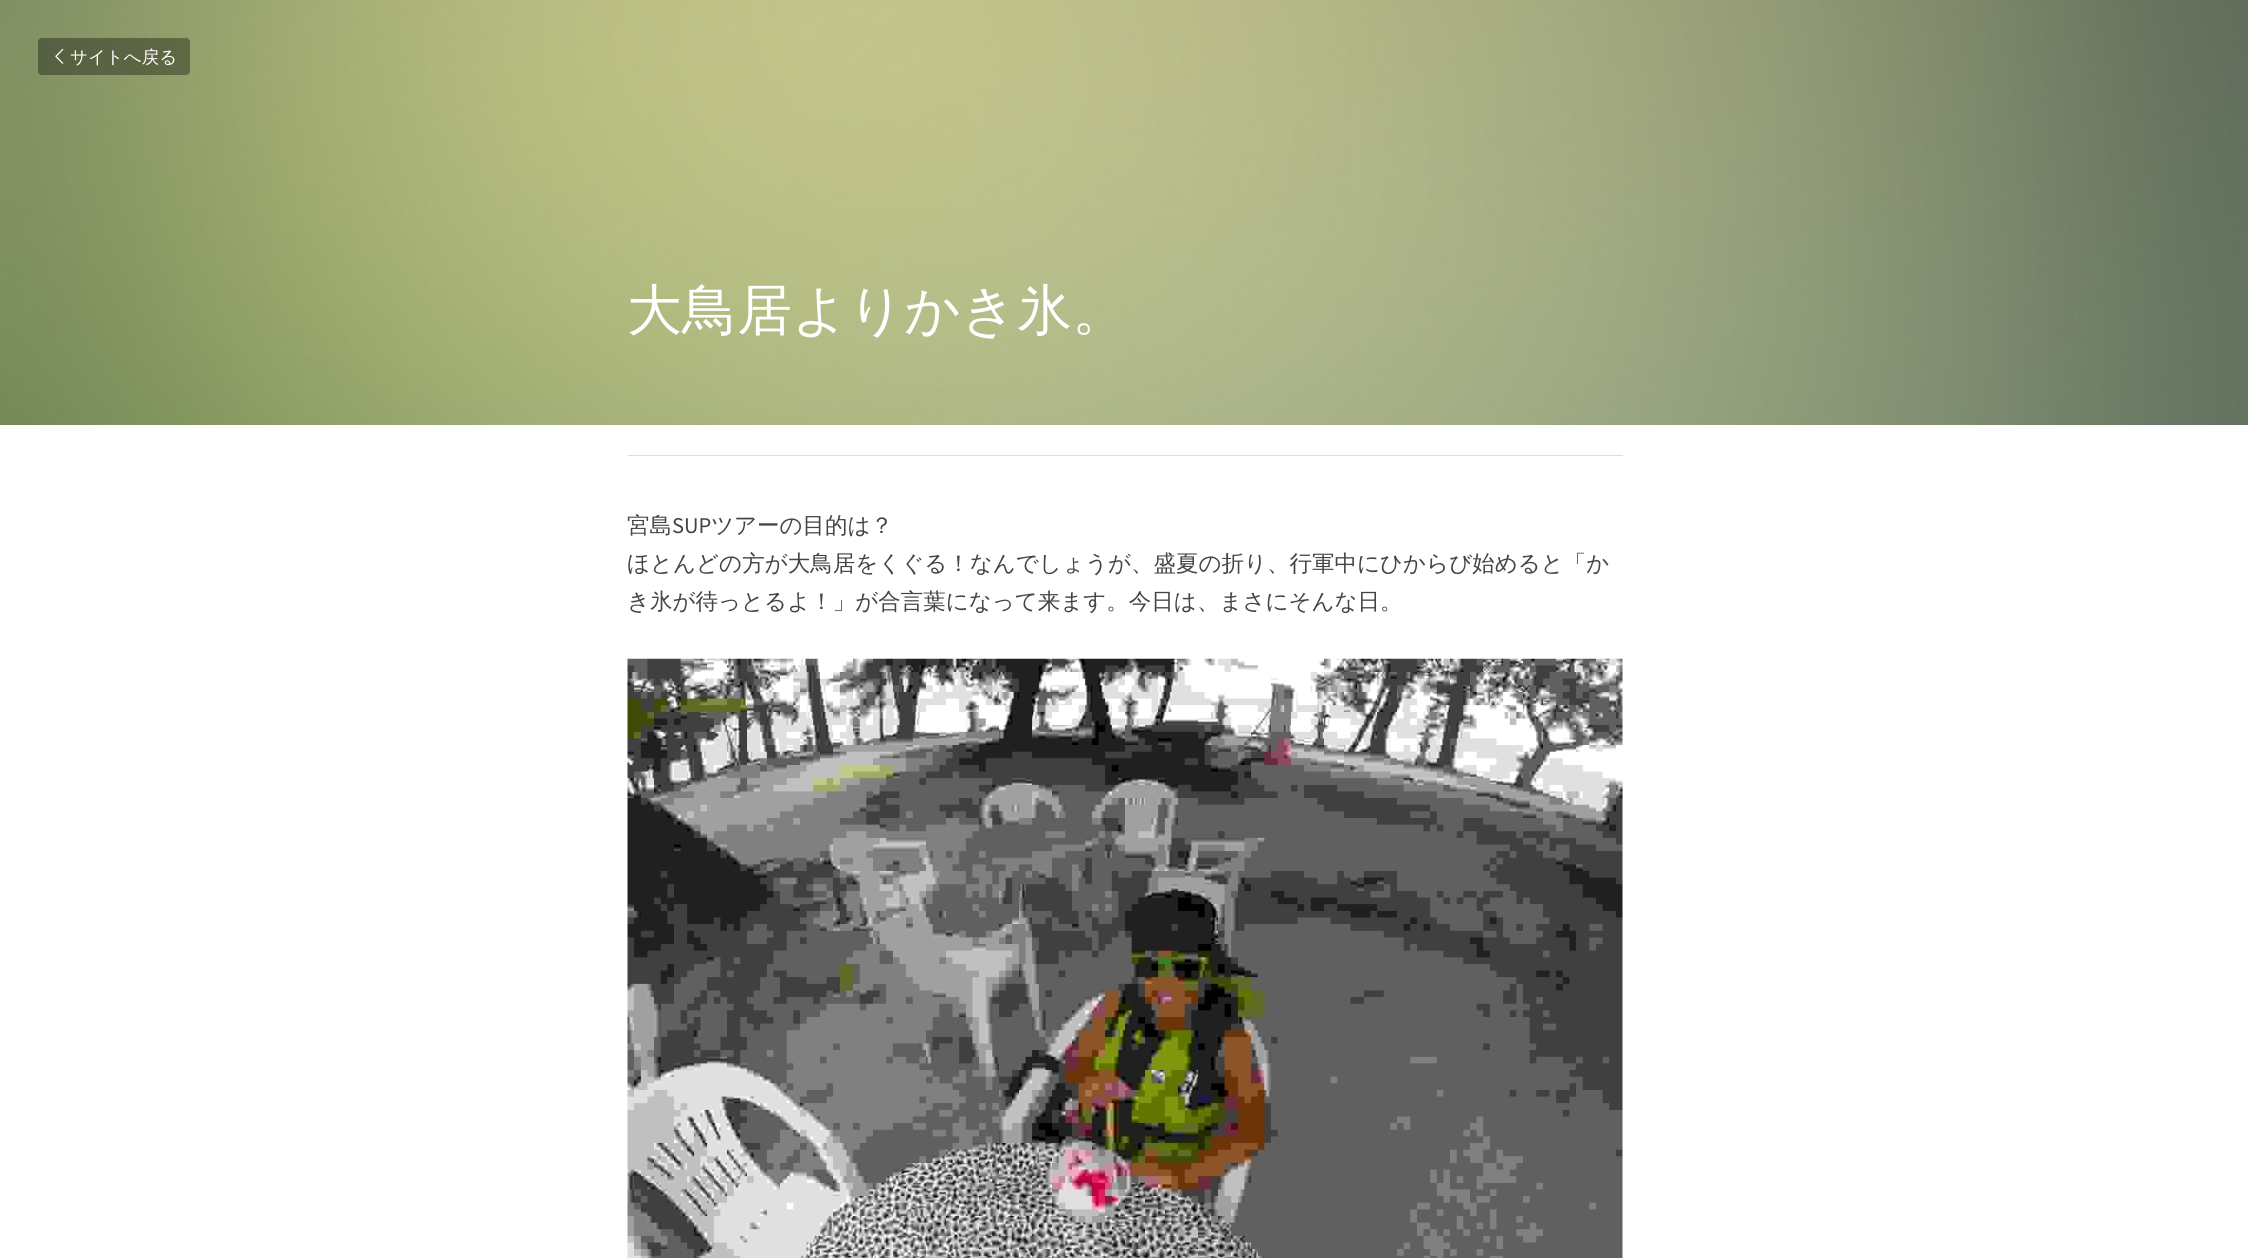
#include <cairo.h>
#include <math.h>
#include <stddef.h>


static void rgb(cairo_t *cr, int r, int g, int b)
{
	cairo_set_source_rgb(cr, r / 255.0, g / 255.0, b / 255.0);
}

static void face(cairo_t *cr, const char *family, double size, int italic, int bold)
{
	cairo_select_font_face(cr, family, italic ? CAIRO_FONT_SLANT_ITALIC : CAIRO_FONT_SLANT_NORMAL,
		bold ? CAIRO_FONT_WEIGHT_BOLD : CAIRO_FONT_WEIGHT_NORMAL);
	cairo_set_font_size(cr, size);
}

static void label(cairo_t *cr, double x, double y, const char *s)
{
	cairo_move_to(cr, x, y);
	cairo_show_text(cr, s);
}

static void rect(cairo_t *cr, double x, double y, double w, double h)
{
	cairo_rectangle(cr, x, y, w, h);
	cairo_fill(cr);
}

static void rrect(cairo_t *cr, double x, double y, double w, double h, double r)
{
	cairo_new_sub_path(cr);
	cairo_arc(cr, x + w - r, y + h - r, r, 0, M_PI / 2);
	cairo_arc(cr, x + r, y + h - r, r, M_PI / 2, M_PI);
	cairo_arc(cr, x + r, y + r, r, M_PI, 1.5 * M_PI);
	cairo_arc(cr, x + w - r, y + r, r, 1.5 * M_PI, 2 * M_PI);
	cairo_close_path(cr);
}

static void image(cairo_t *cr, const char *path, double x, double y, double w, double h)
{
	cairo_surface_t *image = cairo_image_surface_create_from_png(path);
	cairo_save(cr);
	cairo_set_source_surface(cr, image, x, y);
	cairo_rectangle(cr, x, y, w, h);
	cairo_fill(cr);
	cairo_restore(cr);
	cairo_surface_destroy(image);
}

static void draw(cairo_t *cr) {
	rgb(cr, 255, 255, 255);
	cairo_paint(cr);
	image(cr, "image0.png", 0, 0, 2248, 425);
	cairo_set_source_rgba(cr, 0, 0, 0, 0.35);
	rrect(cr, 38, 38, 152, 37, 4);
	cairo_fill(cr);
	image(cr, "image1.png", 55, 48, 9, 16);
	face(cr, "WenQuanYi Zen Hei Medium", 17.5, 0, 0);
	rgb(cr, 255, 255, 255);
	label(cr, 70, 63, "サイトへ戻る");
	face(cr, "WenQuanYi Zen Hei Medium", 55, 0, 0);
	label(cr, 627, 329, "大鳥居よりかき氷。");
	rgb(cr, 221, 221, 221);
	rect(cr, 628, 455, 995, 1);
	face(cr, "WenQuanYi Zen Hei Medium", 22.5, 0, 0);
	rgb(cr, 68, 68, 68);
	label(cr, 627, 533, "宮島");
	face(cr, "Source Sans Pro", 22.5, 0, 0);
	label(cr, 672, 533, "SUP");
	face(cr, "WenQuanYi Zen Hei Medium", 22.5, 0, 0);
	label(cr, 711, 533, "ツアーの目的は？");
	label(cr, 627, 571, "ほとんどの方が大鳥居をくぐる！なんでしょうが、盛夏の折り、行軍中にひからび始めると「か");
	label(cr, 627, 609, "き氷が待っとるよ！」が合言葉になって来ます。今日は、まさにそんな日。");
	image(cr, "image2.png", 627, 658, 996, 600);
}

int main(void) {
	cairo_surface_t *surface = cairo_image_surface_create(CAIRO_FORMAT_RGB24, 2248, 1258);
	cairo_t *cr = cairo_create(surface);
	cairo_font_options_t *options = cairo_font_options_create();
	cairo_font_options_set_hint_metrics(options, CAIRO_HINT_METRICS_OFF);
	cairo_font_options_set_hint_style(options, CAIRO_HINT_STYLE_NONE);
	cairo_set_font_options(cr, options);
	cairo_set_miter_limit(cr, 4);
	draw(cr);
	cairo_surface_write_to_png(surface, "render.png");
	cairo_font_options_destroy(options);
	cairo_destroy(cr);
	cairo_surface_destroy(surface);
	return 0;
}
